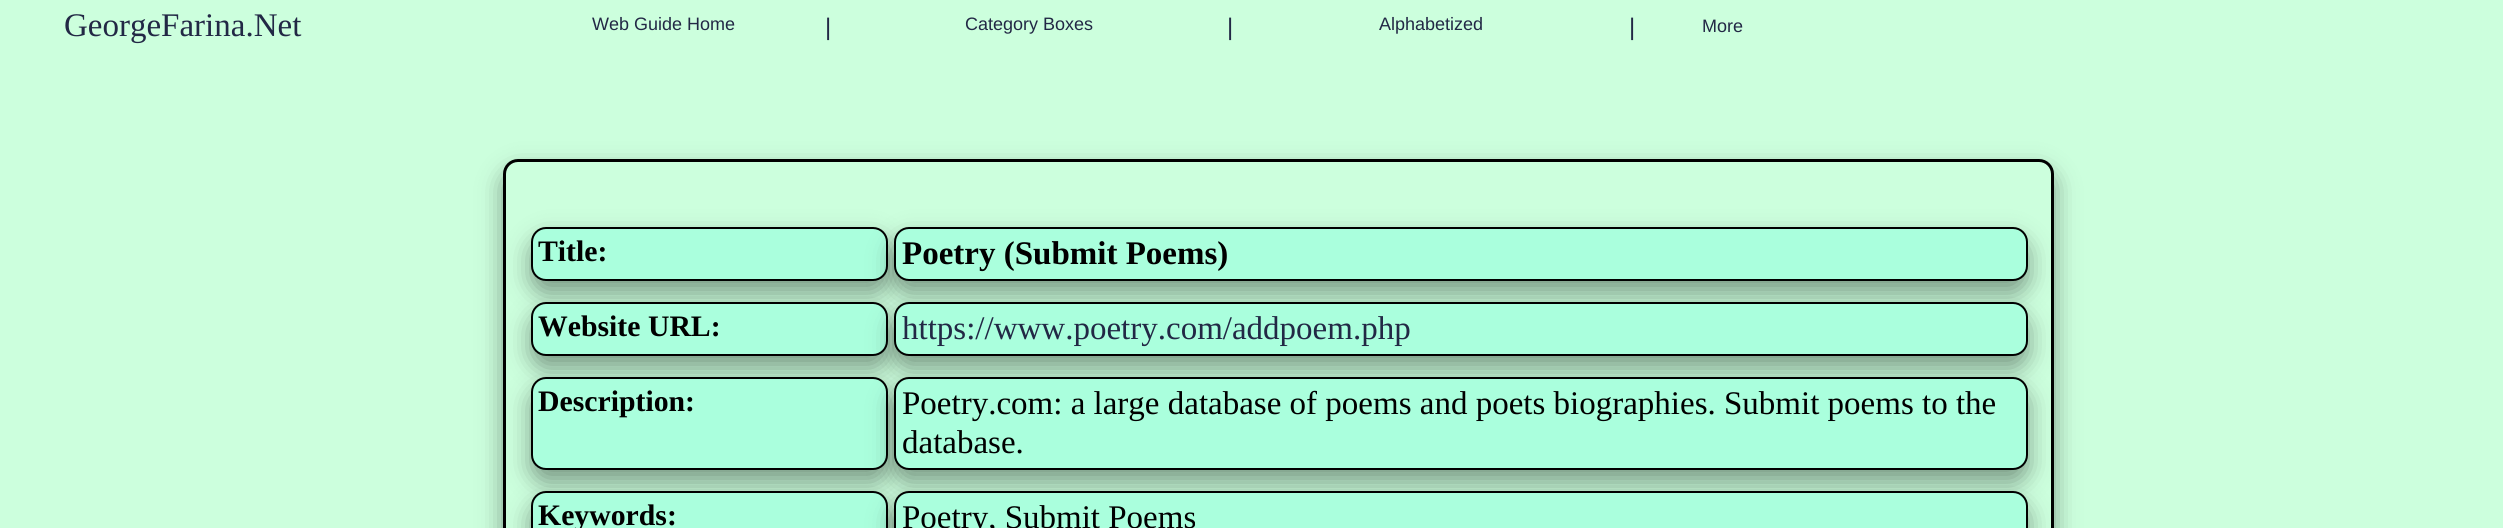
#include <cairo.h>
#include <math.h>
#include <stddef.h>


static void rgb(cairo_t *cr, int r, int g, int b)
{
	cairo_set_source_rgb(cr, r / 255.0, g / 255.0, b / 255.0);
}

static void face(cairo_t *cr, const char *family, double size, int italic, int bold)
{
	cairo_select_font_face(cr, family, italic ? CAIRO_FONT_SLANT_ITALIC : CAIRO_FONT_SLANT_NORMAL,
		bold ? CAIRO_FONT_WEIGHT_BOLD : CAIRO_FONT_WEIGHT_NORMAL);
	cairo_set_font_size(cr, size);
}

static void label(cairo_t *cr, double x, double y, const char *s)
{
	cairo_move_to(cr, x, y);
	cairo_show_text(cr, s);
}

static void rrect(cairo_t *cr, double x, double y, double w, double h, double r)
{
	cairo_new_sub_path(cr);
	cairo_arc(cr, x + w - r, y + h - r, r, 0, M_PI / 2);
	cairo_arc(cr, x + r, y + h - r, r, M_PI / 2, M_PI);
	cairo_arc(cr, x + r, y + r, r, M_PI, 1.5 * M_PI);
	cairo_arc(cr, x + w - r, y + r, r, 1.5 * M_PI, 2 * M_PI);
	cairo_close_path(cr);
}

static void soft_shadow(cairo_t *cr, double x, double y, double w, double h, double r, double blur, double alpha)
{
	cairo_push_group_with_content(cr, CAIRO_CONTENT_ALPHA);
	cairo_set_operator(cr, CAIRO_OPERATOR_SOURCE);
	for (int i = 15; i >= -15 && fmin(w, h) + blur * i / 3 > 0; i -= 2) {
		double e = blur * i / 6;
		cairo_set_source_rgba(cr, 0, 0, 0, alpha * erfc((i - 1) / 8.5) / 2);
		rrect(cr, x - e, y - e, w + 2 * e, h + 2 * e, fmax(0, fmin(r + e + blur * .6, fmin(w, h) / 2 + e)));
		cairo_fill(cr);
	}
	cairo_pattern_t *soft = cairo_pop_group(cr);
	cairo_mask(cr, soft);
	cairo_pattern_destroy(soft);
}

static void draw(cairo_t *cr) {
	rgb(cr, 204, 255, 221);
	cairo_paint(cr);
	face(cr, "Liberation Serif", 33, 0, 0);
	rgb(cr, 34, 40, 69);
	label(cr, 64, 36, "GeorgeFarina.Net");
	face(cr, "Liberation Sans", 18, 0, 0);
	label(cr, 592, 30, "Web Guide Home");
	face(cr, "Liberation Sans", 24, 0, 0);
	label(cr, 825, 35, "|");
	face(cr, "Liberation Sans", 18, 0, 0);
	label(cr, 965, 30, "Category Boxes");
	face(cr, "Liberation Sans", 24, 0, 0);
	label(cr, 1227, 35, "|");
	face(cr, "Liberation Sans", 18, 0, 0);
	label(cr, 1379, 30, "Alphabetized");
	face(cr, "Liberation Sans", 24, 0, 0);
	label(cr, 1629, 35, "|");
	face(cr, "Liberation Sans", 18, 0, 0);
	label(cr, 1702, 32, "More");
	rgb(cr, 0, 0, 0);
	soft_shadow(cr, 503, 171, 1551, 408, 15, 12, 0.4);
	rgb(cr, 204, 255, 221);
	rrect(cr, 504.5, 160.5, 1548, 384, 13.5);
	cairo_fill_preserve(cr);
	rgb(cr, 0, 0, 0);
	cairo_set_line_width(cr, 3);
	cairo_stroke(cr);
	rgb(cr, 0, 0, 0);
	soft_shadow(cr, 531, 239, 357, 54, 15, 12, 0.4);
	rgb(cr, 170, 255, 221);
	rrect(cr, 532, 228, 355, 52, 14);
	cairo_fill_preserve(cr);
	rgb(cr, 0, 0, 0);
	cairo_set_line_width(cr, 2);
	cairo_stroke(cr);
	face(cr, "Liberation Serif", 29.75, 0, 1);
	label(cr, 538, 261, "Title:");
	rgb(cr, 0, 0, 0);
	soft_shadow(cr, 531, 314, 357, 54, 15, 12, 0.4);
	rgb(cr, 170, 255, 221);
	rrect(cr, 532, 303, 355, 52, 14);
	cairo_fill_preserve(cr);
	rgb(cr, 0, 0, 0);
	cairo_stroke(cr);
	rgb(cr, 0, 0, 0);
	soft_shadow(cr, 894, 239, 1134, 54, 15, 12, 0.4);
	rgb(cr, 170, 255, 221);
	rrect(cr, 895, 228, 1132, 52, 14);
	cairo_fill_preserve(cr);
	rgb(cr, 0, 0, 0);
	cairo_stroke(cr);
	face(cr, "Liberation Serif", 33, 0, 1);
	label(cr, 902, 264, "Poetry (Submit Poems)");
	face(cr, "Liberation Serif", 29.75, 0, 1);
	label(cr, 538, 336, "Website URL:");
	rgb(cr, 0, 0, 0);
	soft_shadow(cr, 531, 389, 357, 93, 15, 12, 0.4);
	rgb(cr, 170, 255, 221);
	rrect(cr, 532, 378, 355, 91, 14);
	cairo_fill_preserve(cr);
	rgb(cr, 0, 0, 0);
	cairo_stroke(cr);
	rgb(cr, 0, 0, 0);
	soft_shadow(cr, 894, 314, 1134, 54, 15, 12, 0.4);
	rgb(cr, 170, 255, 221);
	rrect(cr, 895, 303, 1132, 52, 14);
	cairo_fill_preserve(cr);
	rgb(cr, 0, 0, 0);
	cairo_stroke(cr);
	face(cr, "Liberation Serif", 33, 0, 0);
	rgb(cr, 34, 40, 69);
	label(cr, 902, 339, "https://www.poetry.com/addpoem.php");
	face(cr, "Liberation Serif", 29.75, 0, 1);
	rgb(cr, 0, 0, 0);
	label(cr, 538, 411, "Description:");
	rgb(cr, 0, 0, 0);
	soft_shadow(cr, 531, 503, 357, 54, 15, 12, 0.4);
	rgb(cr, 170, 255, 221);
	rrect(cr, 532, 492, 355, 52, 14);
	cairo_fill_preserve(cr);
	rgb(cr, 0, 0, 0);
	cairo_stroke(cr);
	rgb(cr, 0, 0, 0);
	soft_shadow(cr, 894, 389, 1134, 93, 15, 12, 0.4);
	rgb(cr, 170, 255, 221);
	rrect(cr, 895, 378, 1132, 91, 14);
	cairo_fill_preserve(cr);
	rgb(cr, 0, 0, 0);
	cairo_stroke(cr);
	face(cr, "Liberation Serif", 33, 0, 0);
	label(cr, 902, 414, "Poetry.com: a large database of poems and poets biographies. Submit poems to the");
	label(cr, 902, 453, "database.");
	face(cr, "Liberation Serif", 29.75, 0, 1);
	label(cr, 538, 525, "Keywords:");
	rgb(cr, 0, 0, 0);
	soft_shadow(cr, 894, 503, 1134, 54, 15, 12, 0.4);
	rgb(cr, 170, 255, 221);
	rrect(cr, 895, 492, 1132, 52, 14);
	cairo_fill_preserve(cr);
	rgb(cr, 0, 0, 0);
	cairo_stroke(cr);
	face(cr, "Liberation Serif", 33, 0, 0);
	label(cr, 902, 528, "Poetry, Submit Poems");
}

int main(void) {
	cairo_surface_t *surface = cairo_image_surface_create(CAIRO_FORMAT_RGB24, 2503, 528);
	cairo_t *cr = cairo_create(surface);
	cairo_font_options_t *options = cairo_font_options_create();
	cairo_font_options_set_hint_metrics(options, CAIRO_HINT_METRICS_OFF);
	cairo_font_options_set_hint_style(options, CAIRO_HINT_STYLE_NONE);
	cairo_set_font_options(cr, options);
	cairo_set_miter_limit(cr, 4);
	draw(cr);
	cairo_surface_write_to_png(surface, "render.png");
	cairo_font_options_destroy(options);
	cairo_destroy(cr);
	cairo_surface_destroy(surface);
	return 0;
}
